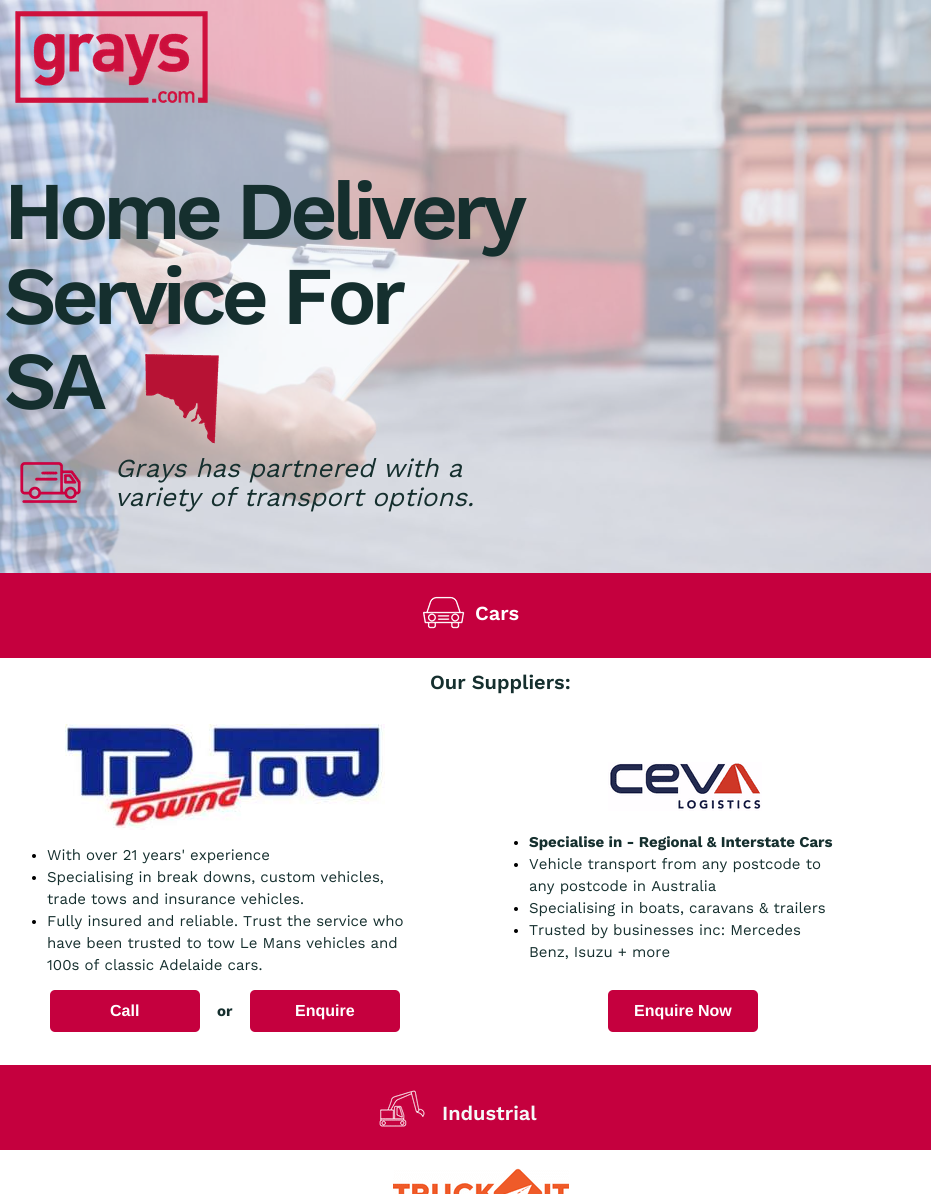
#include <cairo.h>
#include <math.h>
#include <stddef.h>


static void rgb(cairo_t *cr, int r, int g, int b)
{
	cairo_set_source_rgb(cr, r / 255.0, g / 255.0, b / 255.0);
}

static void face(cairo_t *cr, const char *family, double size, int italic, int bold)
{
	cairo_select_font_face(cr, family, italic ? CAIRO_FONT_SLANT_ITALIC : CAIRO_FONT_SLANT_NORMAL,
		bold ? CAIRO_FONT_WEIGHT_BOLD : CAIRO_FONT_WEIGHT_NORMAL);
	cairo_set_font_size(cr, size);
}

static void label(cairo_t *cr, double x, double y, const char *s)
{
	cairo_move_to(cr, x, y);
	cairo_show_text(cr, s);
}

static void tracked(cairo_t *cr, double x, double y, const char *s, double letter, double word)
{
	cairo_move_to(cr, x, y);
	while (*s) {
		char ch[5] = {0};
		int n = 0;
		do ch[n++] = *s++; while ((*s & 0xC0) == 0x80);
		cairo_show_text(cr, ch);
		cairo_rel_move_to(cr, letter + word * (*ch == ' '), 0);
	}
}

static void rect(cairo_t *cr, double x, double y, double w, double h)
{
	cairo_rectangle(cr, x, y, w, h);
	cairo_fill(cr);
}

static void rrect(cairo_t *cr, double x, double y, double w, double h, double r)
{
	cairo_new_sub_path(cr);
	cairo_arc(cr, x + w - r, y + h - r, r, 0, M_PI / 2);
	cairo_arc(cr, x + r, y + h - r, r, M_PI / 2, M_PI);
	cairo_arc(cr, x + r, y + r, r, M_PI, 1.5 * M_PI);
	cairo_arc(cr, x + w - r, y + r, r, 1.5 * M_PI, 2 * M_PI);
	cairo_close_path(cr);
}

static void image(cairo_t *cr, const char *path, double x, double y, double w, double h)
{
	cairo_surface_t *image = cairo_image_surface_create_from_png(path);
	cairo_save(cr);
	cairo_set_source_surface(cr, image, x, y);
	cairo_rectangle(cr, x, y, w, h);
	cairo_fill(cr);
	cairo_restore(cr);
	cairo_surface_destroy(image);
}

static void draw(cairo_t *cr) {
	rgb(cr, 255, 255, 255);
	cairo_paint(cr);
	image(cr, "image0.png", 0, 0, 931, 573);
	image(cr, "image1.png", 15, 11, 193, 92);
	face(cr, "Work Sans SemiBold", 82, 0, 0);
	rgb(cr, 21, 47, 46);
	tracked(cr, 4, 239, "Home Delivery", -5.25, -1);
	tracked(cr, 4, 324, "Service For", -5.25, -1);
	tracked(cr, 4, 409, "SA", -5, 0);
	image(cr, "image2.png", 145, 354, 74, 90);
	image(cr, "image3.png", 20, 461, 61, 43);
	face(cr, "Work Sans", 26, 1, 0);
	label(cr, 115, 477, "Grays has partnered with a");
	label(cr, 115, 506, "variety of transport options.");
	rgb(cr, 197, 0, 62);
	rect(cr, 0, 573, 931, 85);
	image(cr, "image4.png", 423, 596, 42, 33);
	face(cr, "Work Sans SemiBold", 20, 0, 0);
	rgb(cr, 255, 255, 255);
	label(cr, 475, 620, "Cars");
	rgb(cr, 21, 47, 46);
	label(cr, 430, 689, "Our Suppliers:");
	image(cr, "image5.png", 65, 724, 320, 106);
	image(cr, "image6.png", 608, 762, 154, 49);
	rgb(cr, 0, 0, 0);
	cairo_arc(cr, 34, 856, 2, 0, 2 * M_PI);
	cairo_fill(cr);
	face(cr, "Work Sans", 15, 0, 0);
	rgb(cr, 21, 47, 46);
	label(cr, 47, 860, "With over 21 years' experience");
	rgb(cr, 0, 0, 0);
	cairo_new_path(cr);
	cairo_arc(cr, 34, 878, 2, 0, 2 * M_PI);
	cairo_fill(cr);
	rgb(cr, 21, 47, 46);
	label(cr, 47, 882, "Specialising in break downs, custom vehicles,");
	label(cr, 47, 904, "trade tows and insurance vehicles.");
	rgb(cr, 0, 0, 0);
	cairo_new_path(cr);
	cairo_arc(cr, 34, 922, 2, 0, 2 * M_PI);
	cairo_fill(cr);
	rgb(cr, 21, 47, 46);
	label(cr, 47, 926, "Fully insured and reliable. Trust the service who");
	label(cr, 47, 948, "have been trusted to tow Le Mans vehicles and");
	label(cr, 47, 970, "100s of classic Adelaide cars.");
	rgb(cr, 0, 0, 0);
	cairo_new_path(cr);
	cairo_arc(cr, 516, 843, 2, 0, 2 * M_PI);
	cairo_fill(cr);
	face(cr, "Work Sans", 15, 0, 1);
	rgb(cr, 21, 47, 46);
	label(cr, 529, 847, "Specialise in - Regional & Interstate Cars");
	rgb(cr, 0, 0, 0);
	cairo_new_path(cr);
	cairo_arc(cr, 516, 865, 2, 0, 2 * M_PI);
	cairo_fill(cr);
	face(cr, "Work Sans", 15, 0, 0);
	rgb(cr, 21, 47, 46);
	label(cr, 529, 869, "Vehicle transport from any postcode to");
	label(cr, 529, 891, "any postcode in Australia");
	rgb(cr, 0, 0, 0);
	cairo_new_path(cr);
	cairo_arc(cr, 516, 909, 2, 0, 2 * M_PI);
	cairo_fill(cr);
	rgb(cr, 21, 47, 46);
	label(cr, 529, 913, "Specialising in boats, caravans & trailers");
	rgb(cr, 0, 0, 0);
	cairo_new_path(cr);
	cairo_arc(cr, 516, 931, 2, 0, 2 * M_PI);
	cairo_fill(cr);
	rgb(cr, 21, 47, 46);
	label(cr, 529, 935, "Trusted by businesses inc: Mercedes");
	label(cr, 529, 957, "Benz, Isuzu + more");
	rgb(cr, 197, 0, 62);
	rrect(cr, 50, 990, 150, 42, 5);
	cairo_fill(cr);
	face(cr, "Liberation Sans", 16, 0, 1);
	rgb(cr, 255, 255, 255);
	label(cr, 110, 1016, "Call");
	face(cr, "Work Sans", 15, 0, 1);
	rgb(cr, 21, 47, 46);
	label(cr, 217, 1016, "or");
	rgb(cr, 197, 0, 62);
	rrect(cr, 250, 990, 150, 42, 5);
	cairo_fill(cr);
	face(cr, "Liberation Sans", 16, 0, 1);
	rgb(cr, 255, 255, 255);
	label(cr, 295, 1016, "Enquire");
	rgb(cr, 197, 0, 62);
	rrect(cr, 608, 990, 150, 42, 5);
	cairo_fill(cr);
	rgb(cr, 255, 255, 255);
	label(cr, 634, 1016, "Enquire Now");
	rgb(cr, 197, 0, 62);
	rect(cr, 0, 1065, 931, 85);
	image(cr, "image7.png", 379, 1090, 46, 37);
	face(cr, "Work Sans SemiBold", 20, 0, 0);
	rgb(cr, 245, 248, 248);
	label(cr, 442, 1120, "Industrial");
	image(cr, "image8.png", 393, 1168, 176, 26);
}

int main(void) {
	cairo_surface_t *surface = cairo_image_surface_create(CAIRO_FORMAT_RGB24, 931, 1194);
	cairo_t *cr = cairo_create(surface);
	cairo_font_options_t *options = cairo_font_options_create();
	cairo_font_options_set_hint_metrics(options, CAIRO_HINT_METRICS_OFF);
	cairo_font_options_set_hint_style(options, CAIRO_HINT_STYLE_NONE);
	cairo_set_font_options(cr, options);
	cairo_set_miter_limit(cr, 4);
	draw(cr);
	cairo_surface_write_to_png(surface, "render.png");
	cairo_font_options_destroy(options);
	cairo_destroy(cr);
	cairo_surface_destroy(surface);
	return 0;
}
